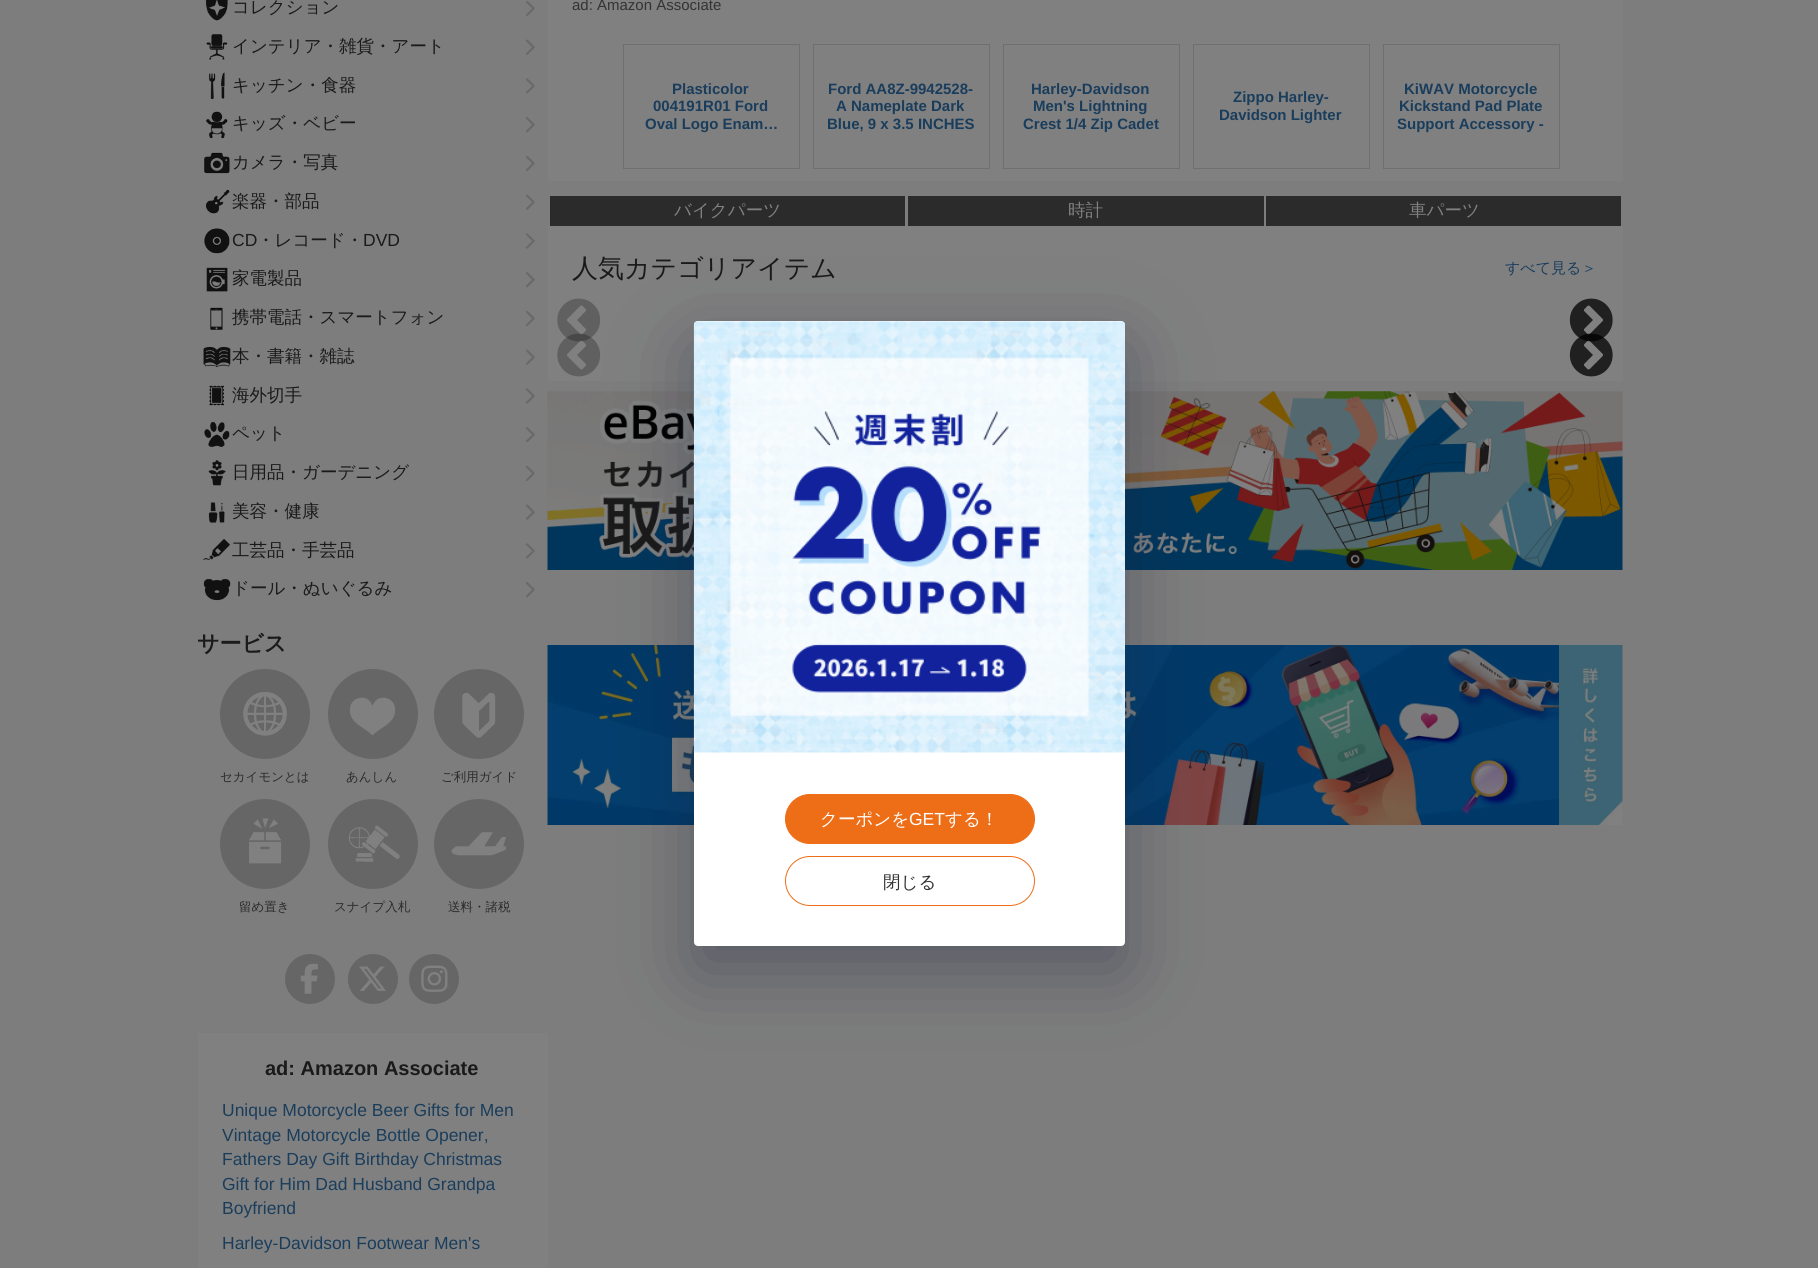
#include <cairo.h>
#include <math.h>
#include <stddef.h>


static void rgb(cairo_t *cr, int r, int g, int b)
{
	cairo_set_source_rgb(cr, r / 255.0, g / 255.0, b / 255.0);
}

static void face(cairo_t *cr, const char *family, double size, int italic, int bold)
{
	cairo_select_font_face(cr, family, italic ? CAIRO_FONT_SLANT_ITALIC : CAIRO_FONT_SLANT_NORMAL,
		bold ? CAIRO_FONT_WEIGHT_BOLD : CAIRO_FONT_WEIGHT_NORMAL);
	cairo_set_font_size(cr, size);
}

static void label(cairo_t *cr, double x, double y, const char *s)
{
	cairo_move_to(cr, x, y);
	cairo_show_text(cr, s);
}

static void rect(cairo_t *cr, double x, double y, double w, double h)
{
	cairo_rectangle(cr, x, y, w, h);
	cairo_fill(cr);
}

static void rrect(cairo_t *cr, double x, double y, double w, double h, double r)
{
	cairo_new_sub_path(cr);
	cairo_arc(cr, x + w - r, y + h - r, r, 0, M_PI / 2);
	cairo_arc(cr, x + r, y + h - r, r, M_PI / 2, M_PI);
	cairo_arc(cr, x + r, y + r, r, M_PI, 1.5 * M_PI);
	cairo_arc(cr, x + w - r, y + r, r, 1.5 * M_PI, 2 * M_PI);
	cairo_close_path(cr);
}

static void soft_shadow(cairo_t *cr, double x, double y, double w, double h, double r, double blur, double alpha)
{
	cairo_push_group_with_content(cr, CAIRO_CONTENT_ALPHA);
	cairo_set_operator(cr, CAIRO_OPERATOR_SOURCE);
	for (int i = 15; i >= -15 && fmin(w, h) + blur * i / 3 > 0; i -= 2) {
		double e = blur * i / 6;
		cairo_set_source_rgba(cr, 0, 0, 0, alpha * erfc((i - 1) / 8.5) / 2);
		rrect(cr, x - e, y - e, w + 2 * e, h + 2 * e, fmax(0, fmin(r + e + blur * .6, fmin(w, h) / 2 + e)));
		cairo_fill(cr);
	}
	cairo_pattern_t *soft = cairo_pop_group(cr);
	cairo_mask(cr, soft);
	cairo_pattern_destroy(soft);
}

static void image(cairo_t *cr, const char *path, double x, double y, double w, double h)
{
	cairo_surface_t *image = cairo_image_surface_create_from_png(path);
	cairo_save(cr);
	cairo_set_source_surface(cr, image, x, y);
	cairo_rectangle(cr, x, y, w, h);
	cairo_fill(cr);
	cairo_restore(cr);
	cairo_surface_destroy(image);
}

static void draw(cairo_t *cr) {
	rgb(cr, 125, 125, 125);
	cairo_paint(cr);
	image(cr, "image0.png", 205, 0, 23, 21);
	face(cr, "WenQuanYi Zen Hei Medium", 17.5, 0, 0);
	rgb(cr, 26, 26, 26);
	label(cr, 232, 13, "コレクション");
	image(cr, "image1.png", 526, 1, 9, 15);
	image(cr, "image2.png", 206, 34, 22, 26);
	label(cr, 232, 52, "インテリア・雑貨・アート");
	image(cr, "image3.png", 526, 39, 9, 16);
	image(cr, "image4.png", 208, 72, 17, 27);
	label(cr, 232, 91, "キッチン・食器");
	image(cr, "image5.png", 526, 78, 9, 16);
	image(cr, "image6.png", 206, 111, 22, 28);
	label(cr, 232, 129, "キッズ・ベビー");
	image(cr, "image7.png", 526, 117, 9, 16);
	image(cr, "image8.png", 204, 152, 26, 22);
	label(cr, 232, 168, "カメラ・写真");
	image(cr, "image1.png", 526, 156, 9, 15);
	image(cr, "image9.png", 205, 189, 25, 25);
	label(cr, 232, 207, "楽器・部品");
	image(cr, "image3.png", 526, 194, 9, 16);
	image(cr, "image10.png", 204, 228, 26, 26);
	face(cr, "Liberation Sans", 17.5, 0, 0);
	label(cr, 232, 246, "CD");
	face(cr, "WenQuanYi Zen Hei Medium", 17.5, 0, 0);
	label(cr, 257, 246, "・レコード・");
	face(cr, "Liberation Sans", 17.5, 0, 0);
	label(cr, 363, 246, "DVD");
	image(cr, "image5.png", 526, 233, 9, 16);
	image(cr, "image11.png", 206, 267, 22, 25);
	face(cr, "WenQuanYi Zen Hei Medium", 17.5, 0, 0);
	label(cr, 232, 284, "家電製品");
	image(cr, "image7.png", 526, 272, 9, 16);
	image(cr, "image12.png", 210, 307, 13, 23);
	label(cr, 232, 323, "携帯電話・スマートフォン");
	image(cr, "image1.png", 526, 311, 9, 15);
	image(cr, "image13.png", 203, 346, 28, 22);
	label(cr, 232, 362, "本・書籍・雑誌");
	image(cr, "image3.png", 526, 349, 9, 16);
	image(cr, "image14.png", 209, 385, 15, 21);
	label(cr, 232, 401, "海外切手");
	image(cr, "image5.png", 526, 388, 9, 16);
	image(cr, "image15.png", 204, 422, 26, 25);
	label(cr, 232, 439, "ペット");
	image(cr, "image7.png", 526, 427, 9, 16);
	image(cr, "image16.png", 208, 460, 18, 26);
	label(cr, 232, 478, "日用品・ガーデニング");
	image(cr, "image1.png", 526, 466, 9, 15);
	image(cr, "image17.png", 208, 502, 17, 21);
	label(cr, 232, 517, "美容・健康");
	image(cr, "image3.png", 526, 504, 9, 16);
	image(cr, "image18.png", 203, 539, 27, 22);
	label(cr, 232, 556, "工芸品・手芸品");
	image(cr, "image5.png", 526, 543, 9, 16);
	image(cr, "image19.png", 203, 578, 28, 23);
	label(cr, 232, 594, "ドール・ぬいぐるみ");
	image(cr, "image7.png", 526, 582, 9, 16);
	face(cr, "WenQuanYi Zen Hei", 22, 0, 1);
	label(cr, 197, 651, "サービス");
	rgb(cr, 102, 102, 102);
	cairo_new_path(cr);
	cairo_arc(cr, 265, 714, 45, 0, 2 * M_PI);
	cairo_fill(cr);
	image(cr, "image20.png", 243, 692, 44, 44);
	face(cr, "WenQuanYi Zen Hei Medium", 12.5, 0, 0);
	rgb(cr, 43, 43, 43);
	label(cr, 220, 781, "セカイモンとは");
	rgb(cr, 102, 102, 102);
	cairo_new_path(cr);
	cairo_arc(cr, 373, 714, 45, 0, 2 * M_PI);
	cairo_fill(cr);
	image(cr, "image21.png", 349, 697, 47, 39);
	rgb(cr, 43, 43, 43);
	label(cr, 346, 781, "あんしん");
	rgb(cr, 102, 102, 102);
	cairo_new_path(cr);
	cairo_arc(cr, 479, 714, 45, 0, 2 * M_PI);
	cairo_fill(cr);
	image(cr, "image22.png", 462, 692, 34, 46);
	rgb(cr, 43, 43, 43);
	label(cr, 441, 781, "ご利用ガイド");
	rgb(cr, 102, 102, 102);
	cairo_new_path(cr);
	cairo_arc(cr, 265, 844, 45, 0, 2 * M_PI);
	cairo_fill(cr);
	image(cr, "image23.png", 249, 818, 33, 46);
	rgb(cr, 43, 43, 43);
	label(cr, 239, 911, "留め置き");
	rgb(cr, 102, 102, 102);
	cairo_new_path(cr);
	cairo_arc(cr, 373, 844, 45, 0, 2 * M_PI);
	cairo_fill(cr);
	image(cr, "image24.png", 348, 825, 52, 37);
	rgb(cr, 43, 43, 43);
	label(cr, 334, 911, "スナイプ入札");
	rgb(cr, 102, 102, 102);
	cairo_new_path(cr);
	cairo_arc(cr, 479, 844, 45, 0, 2 * M_PI);
	cairo_fill(cr);
	image(cr, "image25.png", 451, 832, 56, 24);
	rgb(cr, 43, 43, 43);
	label(cr, 448, 911, "送料・諸税");
	rgb(cr, 102, 102, 102);
	cairo_new_path(cr);
	cairo_arc(cr, 310, 979, 25, 0, 2 * M_PI);
	cairo_fill(cr);
	image(cr, "image26.png", 300, 963, 18, 31);
	cairo_arc(cr, 373, 979, 25, 0, 2 * M_PI);
	cairo_fill(cr);
	image(cr, "image27.png", 359, 966, 27, 25);
	cairo_arc(cr, 434, 979, 25, 0, 2 * M_PI);
	cairo_fill(cr);
	image(cr, "image28.png", 421, 965, 27, 27);
	rgb(cr, 128, 128, 128);
	rect(cr, 198, 1033, 350, 235);
	face(cr, "Liberation Sans", 20, 0, 1);
	rgb(cr, 26, 26, 26);
	label(cr, 265, 1075, "ad: Amazon Associate");
	face(cr, "Liberation Sans", 17.5, 0, 0);
	rgb(cr, 26, 61, 92);
	label(cr, 222, 1116, "Unique Motorcycle Beer Gifts for Men");
	label(cr, 222, 1141, "Vintage Motorcycle Bottle Opener,");
	label(cr, 222, 1165, "Fathers Day Gift Birthday Christmas");
	label(cr, 222, 1190, "Gift for Him Dad Husband Grandpa");
	label(cr, 222, 1214, "Boyfriend");
	label(cr, 222, 1249, "Harley-Davidson Footwear Men's");
	rgb(cr, 128, 128, 128);
	rect(cr, 548, 0, 1075, 181);
	face(cr, "Liberation Sans", 15, 0, 0);
	rgb(cr, 51, 51, 51);
	label(cr, 572, 10, "ad: Amazon Associate");
	cairo_rectangle(cr, 623.5, 44.5, 176, 124);
	rgb(cr, 111, 111, 111);
	cairo_set_line_width(cr, 1);
	cairo_stroke(cr);
	face(cr, "Liberation Sans", 15, 0, 1);
	rgb(cr, 26, 61, 92);
	label(cr, 672, 94, "Plasticolor");
	label(cr, 653, 111, "004191R01 Ford");
	label(cr, 645, 129, "Oval Logo Enam…");
	cairo_rectangle(cr, 813.5, 44.5, 176, 124);
	rgb(cr, 111, 111, 111);
	cairo_stroke(cr);
	rgb(cr, 26, 61, 92);
	label(cr, 828, 94, "Ford AA8Z-9942528-");
	label(cr, 836, 111, "A Nameplate Dark");
	label(cr, 827, 129, "Blue, 9 x 3.5 INCHES");
	cairo_rectangle(cr, 1003.5, 44.5, 176, 124);
	rgb(cr, 111, 111, 111);
	cairo_stroke(cr);
	rgb(cr, 26, 61, 92);
	label(cr, 1031, 94, "Harley-Davidson");
	label(cr, 1033, 111, "Men's Lightning");
	label(cr, 1023, 129, "Crest 1/4 Zip Cadet");
	cairo_rectangle(cr, 1193.5, 44.5, 176, 124);
	rgb(cr, 111, 111, 111);
	cairo_stroke(cr);
	rgb(cr, 26, 61, 92);
	label(cr, 1233, 102, "Zippo Harley-");
	label(cr, 1219, 120, "Davidson Lighter");
	cairo_rectangle(cr, 1383.5, 44.5, 176, 124);
	rgb(cr, 111, 111, 111);
	cairo_stroke(cr);
	rgb(cr, 26, 61, 92);
	label(cr, 1404, 94, "KiWAV Motorcycle");
	label(cr, 1399, 111, "Kickstand Pad Plate");
	label(cr, 1397, 129, "Support Accessory -");
	rgb(cr, 43, 43, 43);
	rect(cr, 550, 196, 355, 30);
	face(cr, "WenQuanYi Zen Hei Medium", 17.5, 0, 0);
	rgb(cr, 128, 128, 128);
	label(cr, 674, 216, "バイクパーツ");
	rgb(cr, 43, 43, 43);
	rect(cr, 908, 196, 356, 30);
	rgb(cr, 128, 128, 128);
	label(cr, 1068, 216, "時計");
	rgb(cr, 43, 43, 43);
	rect(cr, 1266, 196, 355, 30);
	rgb(cr, 128, 128, 128);
	label(cr, 1409, 216, "車パーツ");
	rect(cr, 548, 226, 1075, 155);
	face(cr, "WenQuanYi Zen Hei Medium", 26, 0, 0);
	rgb(cr, 26, 26, 26);
	label(cr, 572, 277, "人気カテゴリアイテム");
	face(cr, "WenQuanYi Zen Hei Medium", 15, 0, 0);
	rgb(cr, 26, 61, 92);
	label(cr, 1505, 273, "すべて見る＞");
	image(cr, "image29.png", 557, 298, 44, 44);
	image(cr, "image30.png", 1569, 298, 44, 44);
	image(cr, "image31.png", 557, 333, 44, 44);
	image(cr, "image32.png", 1569, 333, 44, 44);
	image(cr, "image33.png", 547, 391, 1076, 179);
	image(cr, "image34.png", 547, 645, 1076, 180);
	rgb(cr, 27, 33, 58);
	soft_shadow(cr, 696, 349, 427, 620, 1, 37.5, 0.4);
	rgb(cr, 255, 255, 255);
	rrect(cr, 694, 321, 431, 625, 4);
	cairo_fill(cr);
	image(cr, "image35.png", 693, 321, 432, 432);
	rgb(cr, 238, 109, 23);
	rrect(cr, 785.5, 794.5, 249, 49, 24.5);
	cairo_fill_preserve(cr);
	cairo_stroke(cr);
	face(cr, "WenQuanYi Zen Hei Medium", 17.5, 0, 0);
	rgb(cr, 255, 255, 255);
	label(cr, 820, 825, "クーポンを");
	face(cr, "Liberation Sans", 17.5, 0, 0);
	label(cr, 909, 825, "GET");
	face(cr, "WenQuanYi Zen Hei Medium", 17.5, 0, 0);
	label(cr, 945, 825, "する！");
	rrect(cr, 785.5, 856.5, 249, 49, 24.5);
	rgb(cr, 238, 109, 23);
	cairo_stroke(cr);
	rgb(cr, 51, 51, 51);
	label(cr, 883, 888, "閉じる");
}

int main(void) {
	cairo_surface_t *surface = cairo_image_surface_create(CAIRO_FORMAT_RGB24, 1818, 1268);
	cairo_t *cr = cairo_create(surface);
	cairo_font_options_t *options = cairo_font_options_create();
	cairo_font_options_set_hint_metrics(options, CAIRO_HINT_METRICS_OFF);
	cairo_font_options_set_hint_style(options, CAIRO_HINT_STYLE_NONE);
	cairo_set_font_options(cr, options);
	cairo_set_miter_limit(cr, 4);
	draw(cr);
	cairo_surface_write_to_png(surface, "render.png");
	cairo_font_options_destroy(options);
	cairo_destroy(cr);
	cairo_surface_destroy(surface);
	return 0;
}
